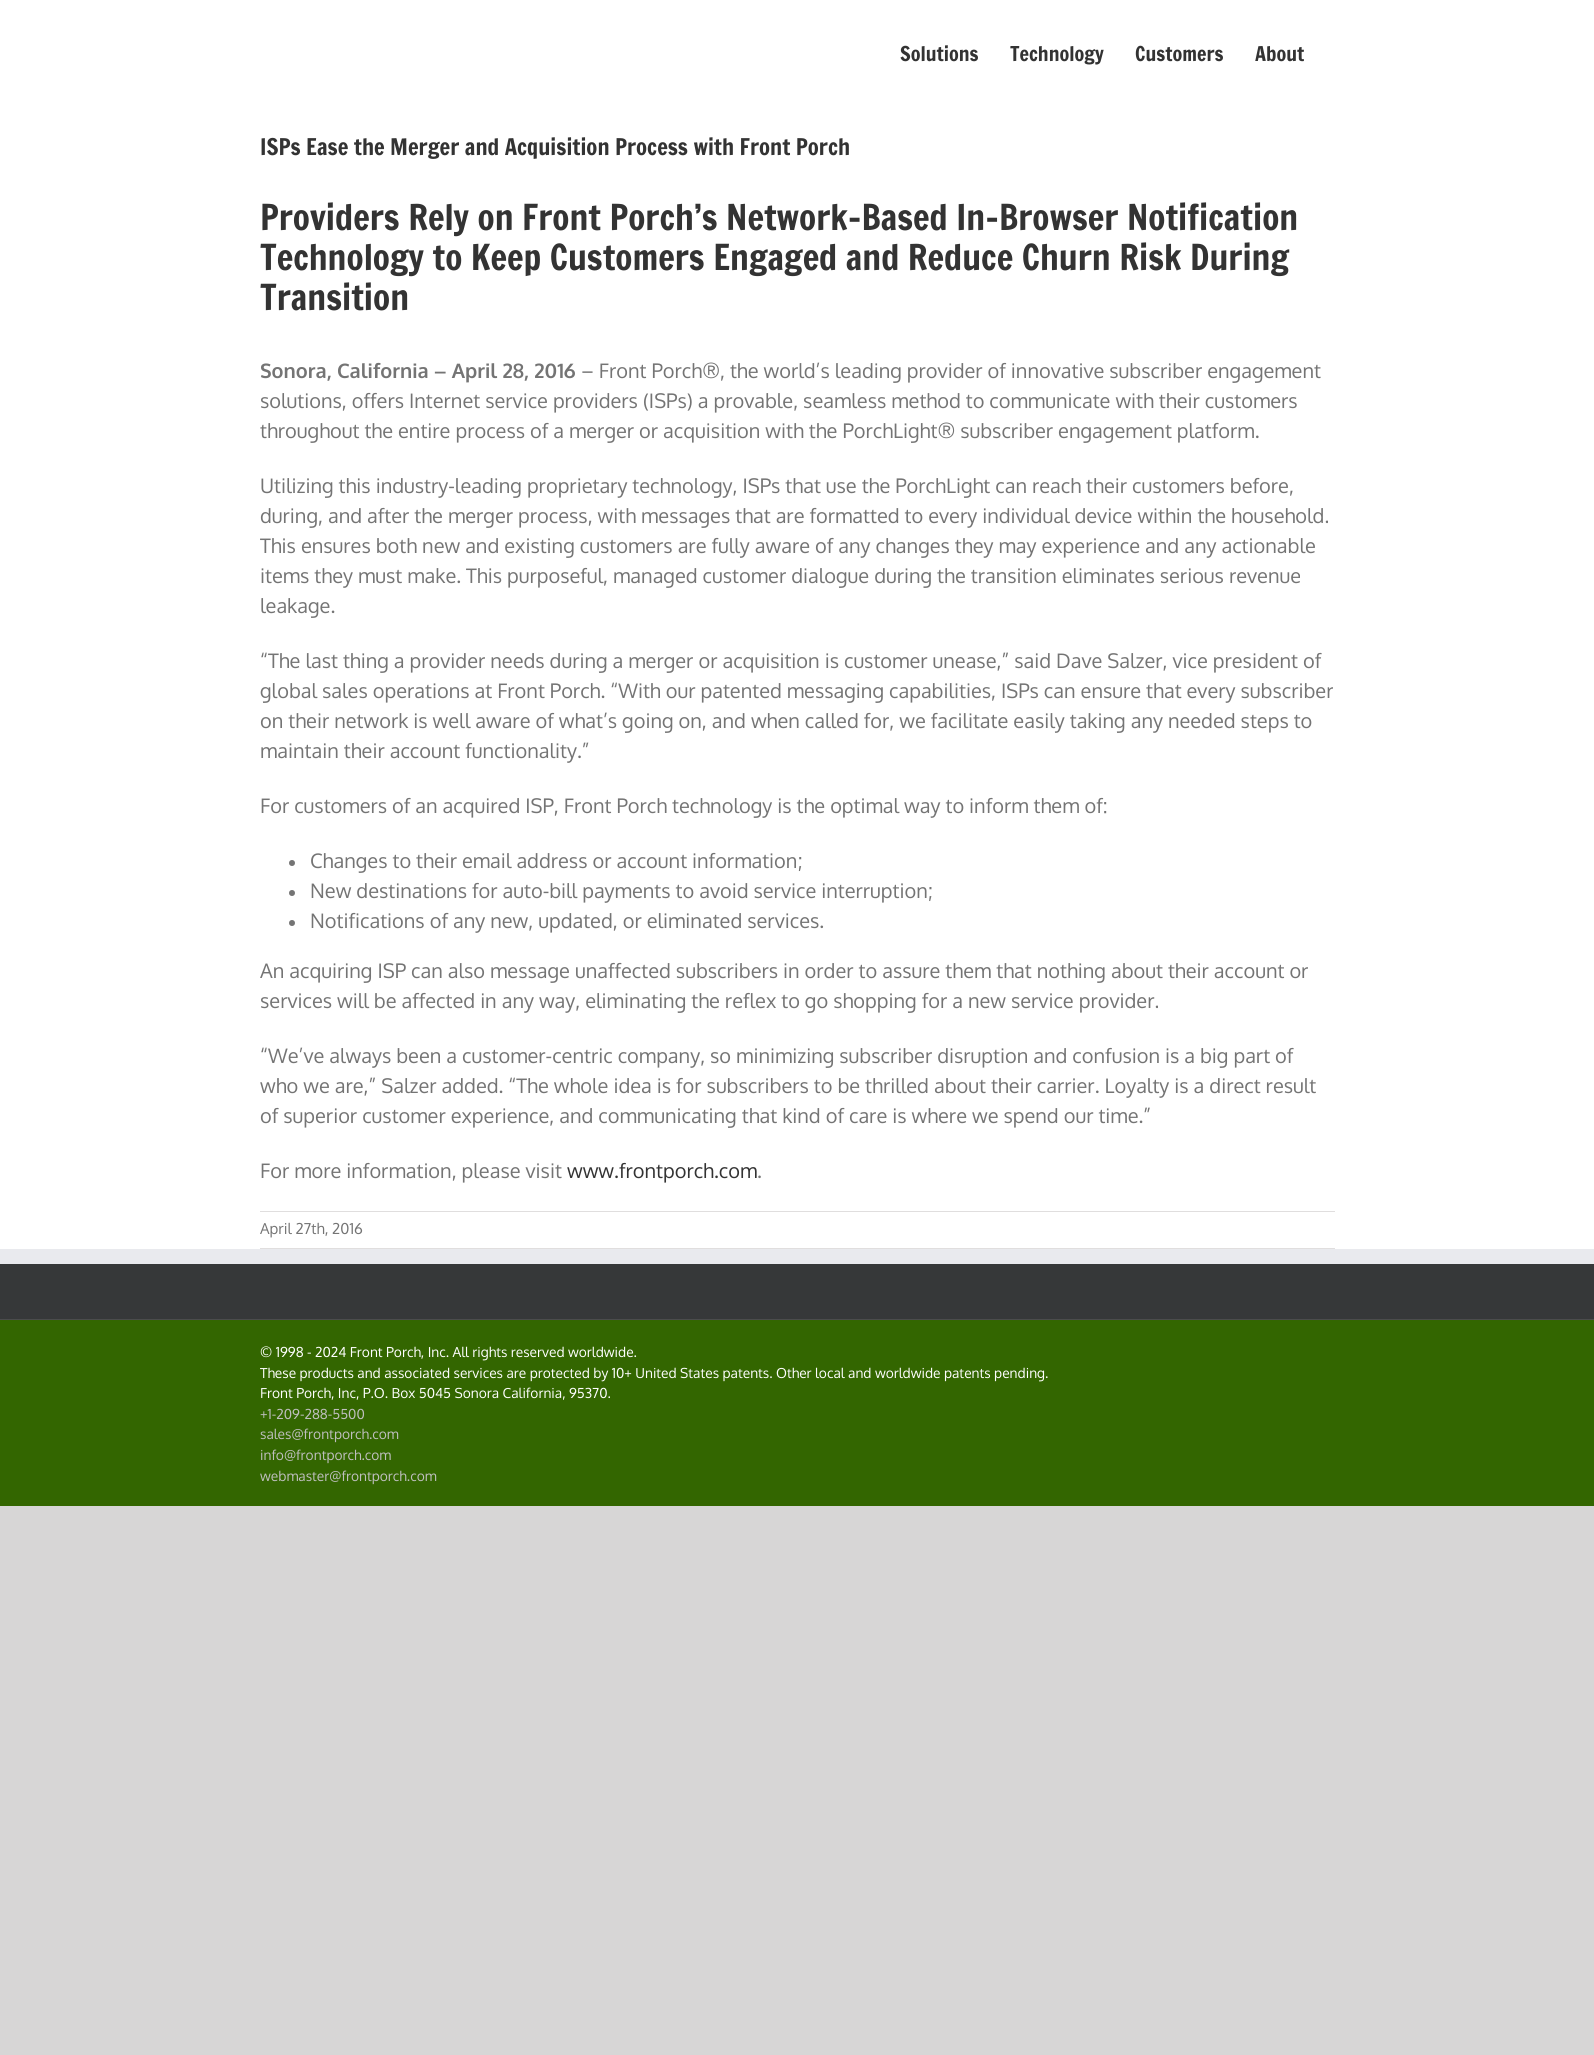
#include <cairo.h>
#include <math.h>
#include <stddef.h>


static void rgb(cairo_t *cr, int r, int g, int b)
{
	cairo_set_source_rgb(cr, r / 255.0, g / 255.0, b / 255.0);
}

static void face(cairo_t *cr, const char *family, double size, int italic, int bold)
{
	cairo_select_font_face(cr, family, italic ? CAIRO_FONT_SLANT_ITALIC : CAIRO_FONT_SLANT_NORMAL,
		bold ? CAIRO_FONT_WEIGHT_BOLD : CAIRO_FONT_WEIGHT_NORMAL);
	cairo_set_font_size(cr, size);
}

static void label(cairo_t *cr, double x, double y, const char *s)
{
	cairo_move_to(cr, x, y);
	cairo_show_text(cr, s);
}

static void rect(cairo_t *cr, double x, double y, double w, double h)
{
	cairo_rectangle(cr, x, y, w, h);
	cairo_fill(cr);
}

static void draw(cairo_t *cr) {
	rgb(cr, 215, 214, 214);
	cairo_paint(cr);
	rgb(cr, 255, 255, 255);
	rect(cr, 0, 0, 1594, 1249);
	face(cr, "Francois One", 20, 0, 0);
	rgb(cr, 51, 51, 51);
	label(cr, 900, 61, "Solutions");
	label(cr, 1010, 61, "Technology");
	label(cr, 1135, 61, "Customers");
	label(cr, 1255, 61, "About");
	face(cr, "Francois One", 22.5, 0, 0);
	label(cr, 260, 155, "ISPs Ease the Merger and Acquisition Process with Front Porch");
	face(cr, "Francois One", 35, 0, 0);
	label(cr, 260, 230, "Providers Rely on Front Porch’s Network-Based In-Browser Notification");
	label(cr, 260, 270, "Technology to Keep Customers Engaged and Reduce Churn Risk During");
	label(cr, 260, 310, "Transition");
	face(cr, "Oxygen", 20, 0, 1);
	rgb(cr, 116, 116, 116);
	label(cr, 260, 378, "Sonora, California – April 28, 2016");
	face(cr, "Oxygen", 20, 0, 0);
	label(cr, 581, 378, "– Front Porch®, the world’s leading provider of innovative subscriber engagement");
	label(cr, 260, 408, "solutions, offers Internet service providers (ISPs) a provable, seamless method to communicate with their customers");
	label(cr, 260, 438, "throughout the entire process of a merger or acquisition with the PorchLight® subscriber engagement platform.");
	label(cr, 260, 493, "Utilizing this industry-leading proprietary technology, ISPs that use the PorchLight can reach their customers before,");
	label(cr, 260, 523, "during, and after the merger process, with messages that are formatted to every individual device within the household.");
	label(cr, 260, 553, "This ensures both new and existing customers are fully aware of any changes they may experience and any actionable");
	label(cr, 260, 583, "items they must make. This purposeful, managed customer dialogue during the transition eliminates serious revenue");
	label(cr, 260, 613, "leakage.");
	label(cr, 260, 668, "“The last thing a provider needs during a merger or acquisition is customer unease,” said Dave Salzer, vice president of");
	label(cr, 260, 698, "global sales operations at Front Porch. “With our patented messaging capabilities, ISPs can ensure that every subscriber");
	label(cr, 260, 728, "on their network is well aware of what’s going on, and when called for, we facilitate easily taking any needed steps to");
	label(cr, 260, 758, "maintain their account functionality.”");
	label(cr, 260, 813, "For customers of an acquired ISP, Front Porch technology is the optimal way to inform them of:");
	cairo_new_path(cr);
	cairo_arc(cr, 292, 863, 3, 0, 2 * M_PI);
	cairo_fill(cr);
	label(cr, 310, 868, "Changes to their email address or account information;");
	cairo_new_path(cr);
	cairo_arc(cr, 292, 893, 3, 0, 2 * M_PI);
	cairo_fill(cr);
	label(cr, 310, 898, "New destinations for auto-bill payments to avoid service interruption;");
	cairo_new_path(cr);
	cairo_arc(cr, 292, 923, 3, 0, 2 * M_PI);
	cairo_fill(cr);
	label(cr, 310, 928, "Notifications of any new, updated, or eliminated services.");
	label(cr, 260, 978, "An acquiring ISP can also message unaffected subscribers in order to assure them that nothing about their account or");
	label(cr, 260, 1008, "services will be affected in any way, eliminating the reflex to go shopping for a new service provider.");
	label(cr, 260, 1063, "“We’ve always been a customer-centric company, so minimizing subscriber disruption and confusion is a big part of");
	label(cr, 260, 1093, "who we are,” Salzer added. “The whole idea is for subscribers to be thrilled about their carrier. Loyalty is a direct result");
	label(cr, 260, 1123, "of superior customer experience, and communicating that kind of care is where we spend our time.”");
	label(cr, 260, 1178, "For more information, please visit");
	rgb(cr, 51, 51, 51);
	label(cr, 567, 1178, "www.frontporch.com");
	rgb(cr, 116, 116, 116);
	label(cr, 757, 1178, ".");
	rgb(cr, 224, 222, 222);
	rect(cr, 260, 1211, 1075, 1);
	rect(cr, 260, 1248, 1075, 1);
	face(cr, "Oxygen", 15, 0, 0);
	rgb(cr, 116, 116, 116);
	label(cr, 260, 1234, "April 27th, 2016");
	rgb(cr, 54, 56, 57);
	rect(cr, 0, 1264, 1594, 55);
	rgb(cr, 233, 234, 238);
	rect(cr, 0, 1249, 1594, 15);
	rgb(cr, 51, 102, 0);
	rect(cr, 0, 1320, 1594, 186);
	rgb(cr, 75, 76, 77);
	rect(cr, 0, 1319, 1594, 1);
	face(cr, "Oxygen", 13.75, 0, 0);
	rgb(cr, 255, 255, 255);
	label(cr, 260, 1357, "© 1998 - 2024 Front Porch, Inc. All rights reserved worldwide.");
	label(cr, 260, 1378, "These products and associated services are protected by 10+ United States patents. Other local and worldwide patents pending.");
	label(cr, 260, 1398, "Front Porch, Inc, P.O. Box 5045 Sonora California, 95370.");
	rgb(cr, 191, 191, 191);
	label(cr, 260, 1419, "+1-209-288-5500");
	label(cr, 260, 1439, "sales@frontporch.com");
	label(cr, 260, 1460, "info@frontporch.com");
	label(cr, 260, 1481, "webmaster@frontporch.com");
}

int main(void) {
	cairo_surface_t *surface = cairo_image_surface_create(CAIRO_FORMAT_RGB24, 1594, 2055);
	cairo_t *cr = cairo_create(surface);
	cairo_font_options_t *options = cairo_font_options_create();
	cairo_font_options_set_hint_metrics(options, CAIRO_HINT_METRICS_OFF);
	cairo_font_options_set_hint_style(options, CAIRO_HINT_STYLE_NONE);
	cairo_set_font_options(cr, options);
	cairo_set_miter_limit(cr, 4);
	draw(cr);
	cairo_surface_write_to_png(surface, "render.png");
	cairo_font_options_destroy(options);
	cairo_destroy(cr);
	cairo_surface_destroy(surface);
	return 0;
}
